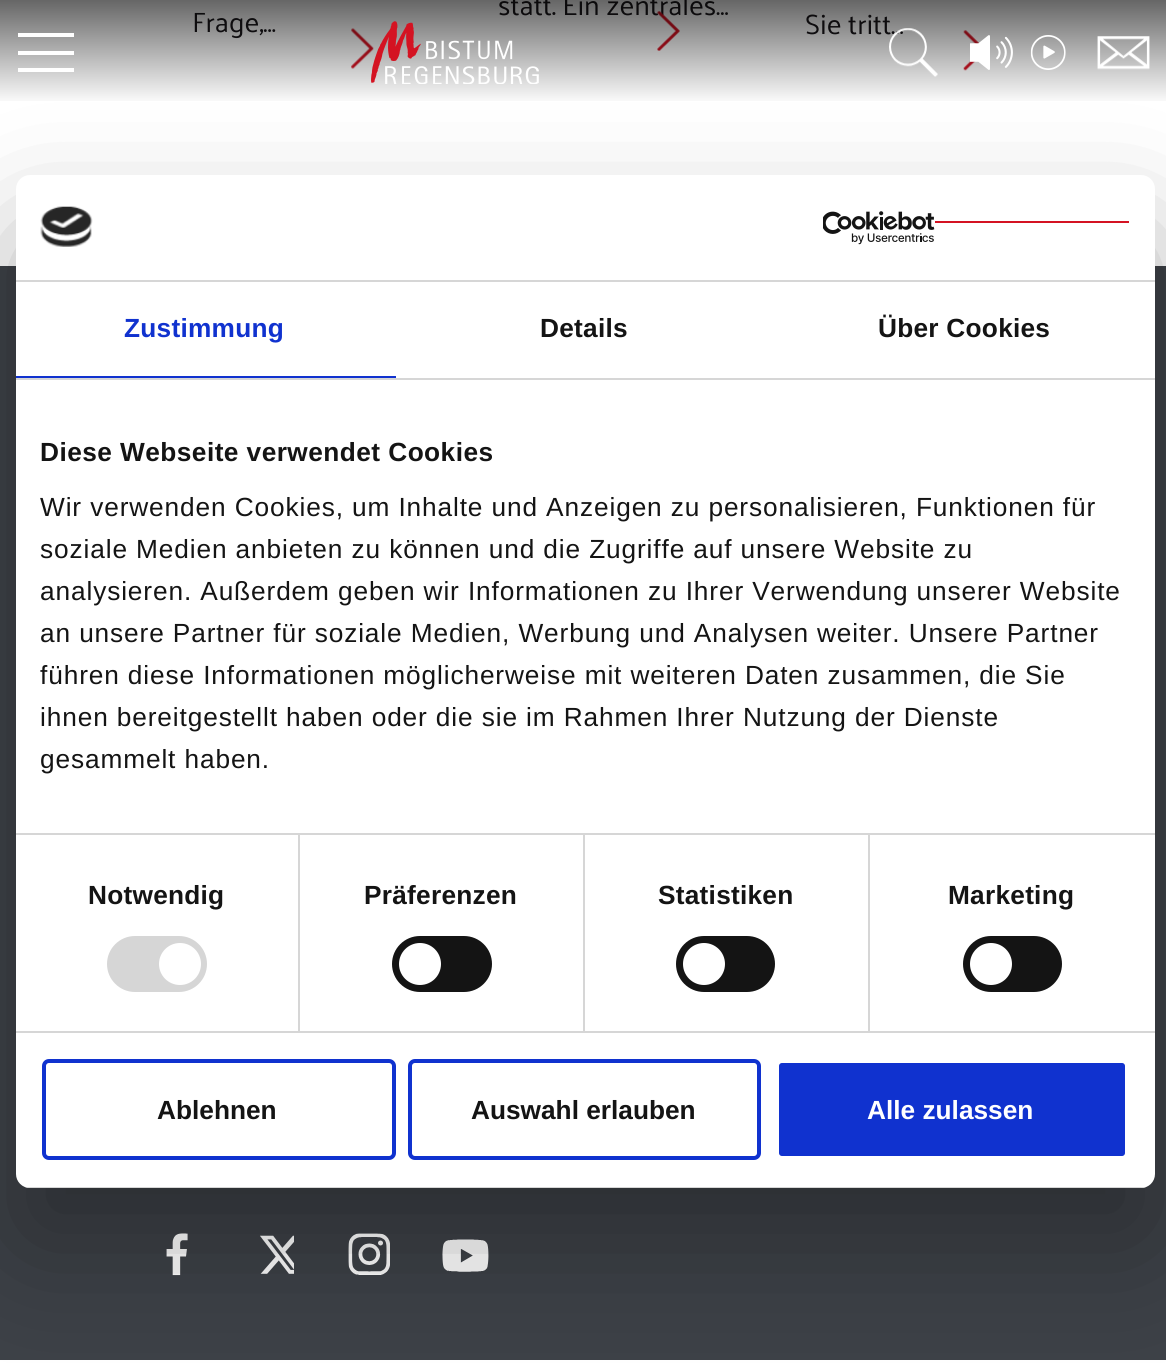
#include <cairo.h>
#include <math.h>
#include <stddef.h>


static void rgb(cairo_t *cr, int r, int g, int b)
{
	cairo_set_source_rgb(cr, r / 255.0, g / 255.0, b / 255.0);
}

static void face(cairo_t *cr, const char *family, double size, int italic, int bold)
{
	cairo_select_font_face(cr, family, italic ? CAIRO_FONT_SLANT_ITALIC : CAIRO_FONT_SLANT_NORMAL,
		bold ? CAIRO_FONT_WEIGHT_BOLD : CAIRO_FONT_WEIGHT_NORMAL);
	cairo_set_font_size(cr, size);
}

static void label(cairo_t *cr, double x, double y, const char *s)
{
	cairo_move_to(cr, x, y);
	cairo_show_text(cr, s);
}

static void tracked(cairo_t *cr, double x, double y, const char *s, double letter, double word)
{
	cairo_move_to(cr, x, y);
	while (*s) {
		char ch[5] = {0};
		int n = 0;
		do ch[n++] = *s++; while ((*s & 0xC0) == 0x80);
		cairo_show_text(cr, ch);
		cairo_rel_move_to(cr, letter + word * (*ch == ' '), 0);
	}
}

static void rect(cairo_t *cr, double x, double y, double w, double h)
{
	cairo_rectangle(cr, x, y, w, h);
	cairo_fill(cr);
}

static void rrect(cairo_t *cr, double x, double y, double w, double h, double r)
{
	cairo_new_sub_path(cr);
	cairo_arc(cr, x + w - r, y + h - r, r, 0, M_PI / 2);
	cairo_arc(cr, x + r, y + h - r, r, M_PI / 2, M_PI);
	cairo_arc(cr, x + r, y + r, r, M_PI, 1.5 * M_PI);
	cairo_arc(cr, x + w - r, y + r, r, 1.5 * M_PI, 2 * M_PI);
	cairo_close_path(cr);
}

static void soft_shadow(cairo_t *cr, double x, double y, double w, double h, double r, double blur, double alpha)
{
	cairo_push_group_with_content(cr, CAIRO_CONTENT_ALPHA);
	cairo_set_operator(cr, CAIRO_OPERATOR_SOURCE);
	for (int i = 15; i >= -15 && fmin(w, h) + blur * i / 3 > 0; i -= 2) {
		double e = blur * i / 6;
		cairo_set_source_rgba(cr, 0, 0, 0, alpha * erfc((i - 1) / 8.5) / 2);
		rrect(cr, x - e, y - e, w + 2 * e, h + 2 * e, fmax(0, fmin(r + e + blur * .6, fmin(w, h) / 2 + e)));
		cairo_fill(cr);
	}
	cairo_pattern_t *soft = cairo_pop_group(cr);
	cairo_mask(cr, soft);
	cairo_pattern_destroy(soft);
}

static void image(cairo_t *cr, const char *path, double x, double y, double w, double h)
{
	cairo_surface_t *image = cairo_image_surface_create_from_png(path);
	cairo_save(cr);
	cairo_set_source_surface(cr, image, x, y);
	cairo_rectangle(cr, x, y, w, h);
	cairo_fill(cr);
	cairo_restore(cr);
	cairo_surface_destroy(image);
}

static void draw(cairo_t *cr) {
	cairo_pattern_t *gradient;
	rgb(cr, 255, 255, 255);
	cairo_paint(cr);
	face(cr, "Palanquin", 28, 0, 0);
	rgb(cr, 26, 23, 27);
	label(cr, 498, 15, "statt. Ein zentrales…");
	image(cr, "image4.png", 657, 11, 23, 40);
	label(cr, 192, 32, "Frage,…");
	image(cr, "image5.png", 351, 28, 23, 41);
	label(cr, 805, 34, "Sie tritt…");
	image(cr, "image6.png", 963, 30, 17, 41);
	gradient = cairo_pattern_create_linear(584, 0, 584, 105);
	cairo_pattern_add_color_stop_rgba(gradient, 0, 0, 0, 0, 0.6);
	cairo_pattern_add_color_stop_rgba(gradient, 1, 0, 0, 0, 0);
	cairo_set_source(cr, gradient);
	cairo_pattern_destroy(gradient);
	rect(cr, 0, 0, 1166, 101);
	rgb(cr, 255, 255, 255);
	rect(cr, 18, 51, 56, 4);
	rect(cr, 18, 33, 56, 4);
	rect(cr, 18, 68, 56, 4);
	image(cr, "image0.png", 371, 21, 168, 63);
	image(cr, "image1.png", 889, 28, 49, 49);
	image(cr, "image2.png", 970, 35, 96, 35);
	image(cr, "image3.png", 1097, 36, 53, 34);
	rgb(cr, 61, 65, 71);
	rect(cr, 0, 266, 1166, 1094);
	image(cr, "image7.png", 166, 1233, 22, 43);
	image(cr, "image8.png", 260, 1235, 34, 39);
	image(cr, "image9.png", 348, 1233, 42, 42);
	image(cr, "image10.png", 442, 1239, 47, 33);
	rgb(cr, 0, 0, 0);
	soft_shadow(cr, 16, 231, 1139, 1013, 14, 59.5, 0.3);
	rgb(cr, 255, 255, 255);
	rrect(cr, 16, 175, 1139, 1013, 14);
	cairo_fill(cr);
	rgb(cr, 214, 214, 214);
	rect(cr, 16, 280, 1139, 2);
	image(cr, "image11.png", 40, 206, 53, 41);
	image(cr, "image12.png", 823, 211, 112, 34);
	rgb(cr, 212, 19, 35);
	rect(cr, 935, 221, 194, 2);
	rgb(cr, 214, 214, 214);
	rect(cr, 16, 378, 1139, 2);
	rgb(cr, 16, 50, 207);
	rect(cr, 16, 376, 380, 2);
	face(cr, "Liberation Sans", 26.25, 0, 1);
	tracked(cr, 124, 337, "Zustimmung", 0.25, 0);
	rgb(cr, 20, 20, 20);
	tracked(cr, 540, 337, "Details", 0.25, 0);
	tracked(cr, 878, 337, "Über Cookies", 0.25, 0);
	rgb(cr, 214, 214, 214);
	rect(cr, 16, 833, 1139, 2);
	rgb(cr, 20, 20, 20);
	tracked(cr, 40, 461, "Diese Webseite verwendet Cookies", 0.45, 0);
	face(cr, "Liberation Sans", 26.25, 0, 0);
	tracked(cr, 40, 516, "Wir verwenden Cookies, um Inhalte und Anzeigen zu personalisieren, Funktionen für", 0.88, 0);
	tracked(cr, 40, 558, "soziale Medien anbieten zu können und die Zugriffe auf unsere Website zu", 0.88, 0);
	tracked(cr, 40, 600, "analysieren. Außerdem geben wir Informationen zu Ihrer Verwendung unserer Website", 0.88, 0);
	tracked(cr, 40, 642, "an unsere Partner für soziale Medien, Werbung und Analysen weiter. Unsere Partner", 0.88, 0);
	tracked(cr, 40, 684, "führen diese Informationen möglicherweise mit weiteren Daten zusammen, die Sie", 0.88, 0);
	tracked(cr, 40, 726, "ihnen bereitgestellt haben oder die sie im Rahmen Ihrer Nutzung der Dienste", 0.88, 0);
	tracked(cr, 40, 768, "gesammelt haben.", 0.88, 0);
	rgb(cr, 214, 214, 214);
	rect(cr, 16, 1031, 1139, 2);
	rect(cr, 298, 835, 2, 196);
	face(cr, "Liberation Sans", 26.25, 0, 1);
	rgb(cr, 20, 20, 20);
	tracked(cr, 88, 904, "Notwendig", 0.25, 0);
	rgb(cr, 214, 214, 214);
	rrect(cr, 107, 936, 100, 56, 28);
	cairo_fill(cr);
	rgb(cr, 255, 255, 255);
	cairo_arc(cr, 180, 964, 21, 0, 2 * M_PI);
	cairo_fill(cr);
	rgb(cr, 214, 214, 214);
	rect(cr, 583, 835, 2, 196);
	rgb(cr, 20, 20, 20);
	tracked(cr, 364, 904, "Präferenzen", 0.25, 0);
	rrect(cr, 392, 936, 100, 56, 28);
	cairo_fill(cr);
	rgb(cr, 255, 255, 255);
	cairo_arc(cr, 420, 964, 21, 0, 2 * M_PI);
	cairo_fill(cr);
	rgb(cr, 214, 214, 214);
	rect(cr, 868, 835, 2, 196);
	rgb(cr, 20, 20, 20);
	tracked(cr, 658, 904, "Statistiken", 0.25, 0);
	rrect(cr, 676, 936, 99, 56, 28);
	cairo_fill(cr);
	rgb(cr, 255, 255, 255);
	cairo_arc(cr, 704, 964, 21, 0, 2 * M_PI);
	cairo_fill(cr);
	rgb(cr, 20, 20, 20);
	tracked(cr, 948, 904, "Marketing", 0.25, 0);
	rrect(cr, 963, 936, 99, 56, 28);
	cairo_fill(cr);
	rgb(cr, 255, 255, 255);
	cairo_arc(cr, 991, 964, 21, 0, 2 * M_PI);
	cairo_fill(cr);
	cairo_save(cr);
	rrect(cr, 16, 175, 1139, 1013, 14);
	cairo_clip(cr);
	rgb(cr, 214, 214, 214);
	rect(cr, 25, 1187, 1121, 1);
	cairo_restore(cr);
	rrect(cr, 44, 1061, 350, 97, 5);
	rgb(cr, 16, 50, 207);
	cairo_set_line_width(cr, 4);
	cairo_stroke(cr);
	rgb(cr, 20, 20, 20);
	label(cr, 157, 1119, "Ablehnen");
	rrect(cr, 410, 1061, 349, 97, 5);
	rgb(cr, 16, 50, 207);
	cairo_stroke(cr);
	rgb(cr, 20, 20, 20);
	label(cr, 471, 1119, "Auswahl erlauben");
	rgb(cr, 16, 50, 207);
	rrect(cr, 777, 1061, 350, 97, 5);
	cairo_fill_preserve(cr);
	rgb(cr, 255, 255, 255);
	cairo_stroke(cr);
	label(cr, 867, 1119, "Alle zulassen");
}

int main(void) {
	cairo_surface_t *surface = cairo_image_surface_create(CAIRO_FORMAT_RGB24, 1166, 1363);
	cairo_t *cr = cairo_create(surface);
	cairo_font_options_t *options = cairo_font_options_create();
	cairo_font_options_set_hint_metrics(options, CAIRO_HINT_METRICS_OFF);
	cairo_font_options_set_hint_style(options, CAIRO_HINT_STYLE_NONE);
	cairo_set_font_options(cr, options);
	cairo_set_miter_limit(cr, 4);
	draw(cr);
	cairo_surface_write_to_png(surface, "render.png");
	cairo_font_options_destroy(options);
	cairo_destroy(cr);
	cairo_surface_destroy(surface);
	return 0;
}
